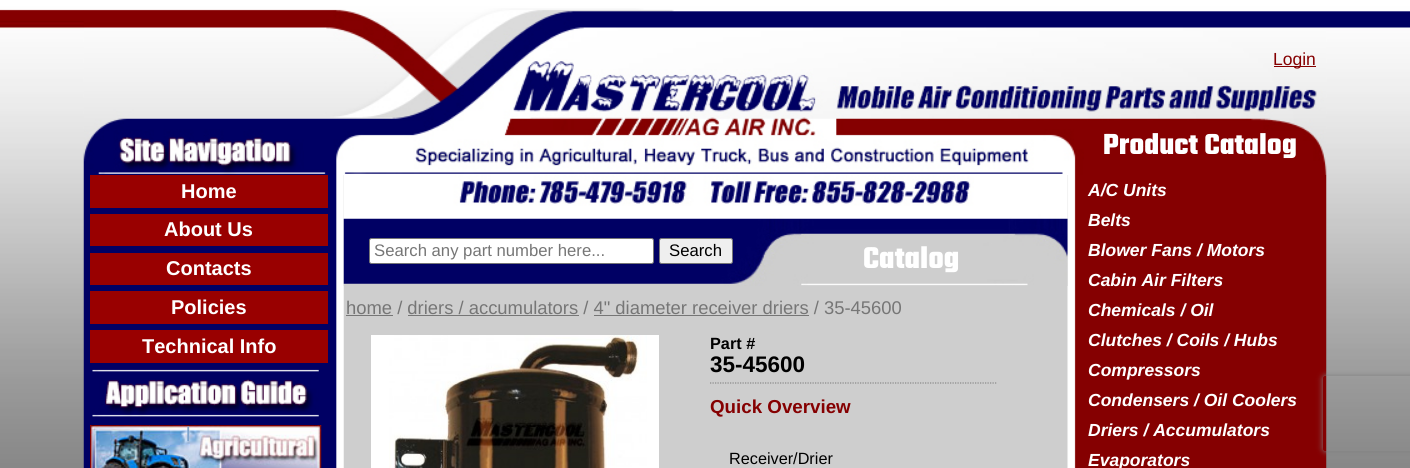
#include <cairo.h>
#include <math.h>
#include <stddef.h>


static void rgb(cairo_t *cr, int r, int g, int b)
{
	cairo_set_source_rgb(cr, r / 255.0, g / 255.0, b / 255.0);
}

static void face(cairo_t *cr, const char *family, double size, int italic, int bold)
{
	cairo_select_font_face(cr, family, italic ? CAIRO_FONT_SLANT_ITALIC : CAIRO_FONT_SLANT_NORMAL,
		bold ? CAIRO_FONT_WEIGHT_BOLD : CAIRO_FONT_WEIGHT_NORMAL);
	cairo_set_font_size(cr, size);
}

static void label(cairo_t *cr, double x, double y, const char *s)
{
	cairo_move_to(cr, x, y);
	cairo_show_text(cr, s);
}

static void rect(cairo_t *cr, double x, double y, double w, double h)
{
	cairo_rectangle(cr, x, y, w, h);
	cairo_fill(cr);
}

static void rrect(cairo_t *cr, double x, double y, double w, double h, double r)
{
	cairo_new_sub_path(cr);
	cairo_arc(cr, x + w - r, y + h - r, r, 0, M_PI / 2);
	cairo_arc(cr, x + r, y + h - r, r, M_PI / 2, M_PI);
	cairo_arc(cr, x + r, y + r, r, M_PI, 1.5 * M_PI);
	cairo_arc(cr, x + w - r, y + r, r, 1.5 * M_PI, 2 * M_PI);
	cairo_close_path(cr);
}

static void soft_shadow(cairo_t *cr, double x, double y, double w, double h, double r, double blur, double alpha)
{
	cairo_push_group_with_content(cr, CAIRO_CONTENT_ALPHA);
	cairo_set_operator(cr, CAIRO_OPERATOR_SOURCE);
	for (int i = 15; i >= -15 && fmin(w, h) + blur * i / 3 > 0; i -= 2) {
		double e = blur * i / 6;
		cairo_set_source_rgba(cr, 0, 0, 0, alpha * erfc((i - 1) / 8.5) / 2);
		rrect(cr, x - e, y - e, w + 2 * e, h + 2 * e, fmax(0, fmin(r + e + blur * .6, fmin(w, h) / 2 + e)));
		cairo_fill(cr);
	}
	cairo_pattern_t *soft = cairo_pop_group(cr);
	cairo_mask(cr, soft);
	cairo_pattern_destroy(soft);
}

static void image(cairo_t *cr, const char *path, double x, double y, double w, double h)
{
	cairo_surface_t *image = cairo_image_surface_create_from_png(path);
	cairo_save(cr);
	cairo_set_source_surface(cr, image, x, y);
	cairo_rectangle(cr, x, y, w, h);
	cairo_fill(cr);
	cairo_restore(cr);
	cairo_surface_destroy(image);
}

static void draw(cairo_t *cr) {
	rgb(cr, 255, 255, 255);
	cairo_paint(cr);
	image(cr, "image0.png", 0, 0, 1410, 468);
	image(cr, "image1.png", 1326, 9, 84, 20);
	image(cr, "image2.png", 83, 8, 1244, 167);
	rgb(cr, 133, 0, 1);
	rect(cr, 1274, 66, 42, 1);
	face(cr, "Liberation Sans", 17.5, 0, 0);
	label(cr, 1273, 65, "Login");
	image(cr, "image3.png", 83, 175, 1244, 293);
	rgb(cr, 153, 0, 0);
	rect(cr, 90, 175, 238, 33);
	face(cr, "Liberation Sans", 20, 0, 1);
	rgb(cr, 255, 255, 255);
	label(cr, 181, 198, "Home");
	rgb(cr, 153, 0, 0);
	rect(cr, 90, 214, 238, 32);
	rgb(cr, 255, 255, 255);
	label(cr, 164, 236, "About Us");
	rgb(cr, 153, 0, 0);
	rect(cr, 90, 253, 238, 32);
	rgb(cr, 255, 255, 255);
	label(cr, 166, 275, "Contacts");
	rgb(cr, 153, 0, 0);
	rect(cr, 90, 291, 238, 33);
	rgb(cr, 255, 255, 255);
	label(cr, 171, 314, "Policies");
	rgb(cr, 153, 0, 0);
	rect(cr, 90, 330, 238, 33);
	rgb(cr, 255, 255, 255);
	label(cr, 142, 353, "Technical Info");
	image(cr, "image4.png", 92, 369, 227, 48);
	image(cr, "image5.png", 90, 425, 232, 43);
	face(cr, "Liberation Sans", 20, 0, 0);
	rgb(cr, 125, 163, 203);
	label(cr, 186, 441, "l");
	image(cr, "image6.png", 343, 175, 725, 111);
	rgb(cr, 255, 255, 255);
	rrect(cr, 369.5, 238.5, 284, 25, 2);
	cairo_fill_preserve(cr);
	rgb(cr, 118, 118, 118);
	cairo_set_line_width(cr, 1);
	cairo_stroke(cr);
	face(cr, "Liberation Sans", 16.7, 0, 0);
	label(cr, 374, 256, "Search any part number here...");
	rgb(cr, 239, 239, 239);
	rrect(cr, 659.5, 238.5, 73, 25, 2);
	cairo_fill_preserve(cr);
	rgb(cr, 118, 118, 118);
	cairo_stroke(cr);
	rgb(cr, 0, 0, 0);
	label(cr, 669, 256, "Search");
	face(cr, "Teko Light", 32.5, 0, 0);
	rgb(cr, 255, 255, 255);
	label(cr, 863, 268, "Catalog");
	face(cr, "Liberation Sans", 18.4, 0, 0);
	rgb(cr, 118, 118, 118);
	label(cr, 346, 314, "home / driers / accumulators / 4\" diameter receiver driers / 35-45600");
	rect(cr, 346, 315, 47, 1);
	rect(cr, 408, 315, 171, 1);
	rect(cr, 594, 315, 215, 1);
	rgb(cr, 255, 255, 255);
	rect(cr, 371, 335, 288, 133);
	image(cr, "image7.png", 389, 335, 258, 133);
	face(cr, "Liberation Sans", 16.25, 0, 1);
	rgb(cr, 0, 0, 0);
	label(cr, 710, 349, "Part #");
	face(cr, "Liberation Sans", 22.5, 0, 1);
	label(cr, 710, 372, "35-45600");
	cairo_new_path(cr);
	cairo_move_to(cr, 710, 383);
	cairo_line_to(cr, 997.5, 383);
	rgb(cr, 136, 136, 136);
	cairo_set_line_width(cr, 1.2);
	cairo_set_dash(cr, (double[]){1.25, 1.25}, 2, 0);
	cairo_stroke(cr);
	face(cr, "Liberation Sans", 18.75, 0, 1);
	rgb(cr, 133, 0, 1);
	label(cr, 710, 413, "Quick Overview");
	face(cr, "Liberation Sans", 16.25, 0, 0);
	rgb(cr, 0, 0, 0);
	label(cr, 729, 464, "Receiver/Drier");
	face(cr, "Teko Light", 31.25, 0, 0);
	rgb(cr, 255, 255, 255);
	label(cr, 1103, 154, "Product Catalog");
	face(cr, "Liberation Sans", 17.5, 1, 1);
	label(cr, 1088, 196, "A/C Units");
	label(cr, 1088, 226, "Belts");
	label(cr, 1088, 256, "Blower Fans / Motors");
	label(cr, 1088, 286, "Cabin Air Filters");
	label(cr, 1088, 316, "Chemicals / Oil");
	label(cr, 1088, 346, "Clutches / Coils / Hubs");
	label(cr, 1088, 376, "Compressors");
	label(cr, 1088, 406, "Condensers / Oil Coolers");
	label(cr, 1088, 436, "Driers / Accumulators");
	label(cr, 1088, 466, "Evaporators");
	cairo_save(cr);
	cairo_set_fill_rule(cr, CAIRO_FILL_RULE_EVEN_ODD);
	cairo_new_path(cr);
	cairo_move_to(cr, 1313, 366);
	cairo_line_to(cr, 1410, 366);
	cairo_line_to(cr, 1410, 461);
	cairo_line_to(cr, 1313, 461);
	cairo_close_path(cr);
	cairo_move_to(cr, 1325.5, 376);
	cairo_line_to(cr, 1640.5, 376);
	cairo_curve_to(cr, 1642, 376, 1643, 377, 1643, 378.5);
	cairo_line_to(cr, 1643, 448.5);
	cairo_curve_to(cr, 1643, 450, 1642, 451, 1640.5, 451);
	cairo_line_to(cr, 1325.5, 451);
	cairo_curve_to(cr, 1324, 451, 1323, 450, 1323, 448.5);
	cairo_line_to(cr, 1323, 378.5);
	cairo_curve_to(cr, 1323, 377, 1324, 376, 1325.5, 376);
	cairo_close_path(cr);
	cairo_clip(cr);
	rgb(cr, 128, 128, 128);
	soft_shadow(cr, 1323, 376, 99, 75, 2.5, 3, 1);
	cairo_restore(cr);
}

int main(void) {
	cairo_surface_t *surface = cairo_image_surface_create(CAIRO_FORMAT_RGB24, 1410, 468);
	cairo_t *cr = cairo_create(surface);
	cairo_font_options_t *options = cairo_font_options_create();
	cairo_font_options_set_hint_metrics(options, CAIRO_HINT_METRICS_OFF);
	cairo_font_options_set_hint_style(options, CAIRO_HINT_STYLE_NONE);
	cairo_set_font_options(cr, options);
	cairo_set_miter_limit(cr, 4);
	draw(cr);
	cairo_surface_write_to_png(surface, "render.png");
	cairo_font_options_destroy(options);
	cairo_destroy(cr);
	cairo_surface_destroy(surface);
	return 0;
}
